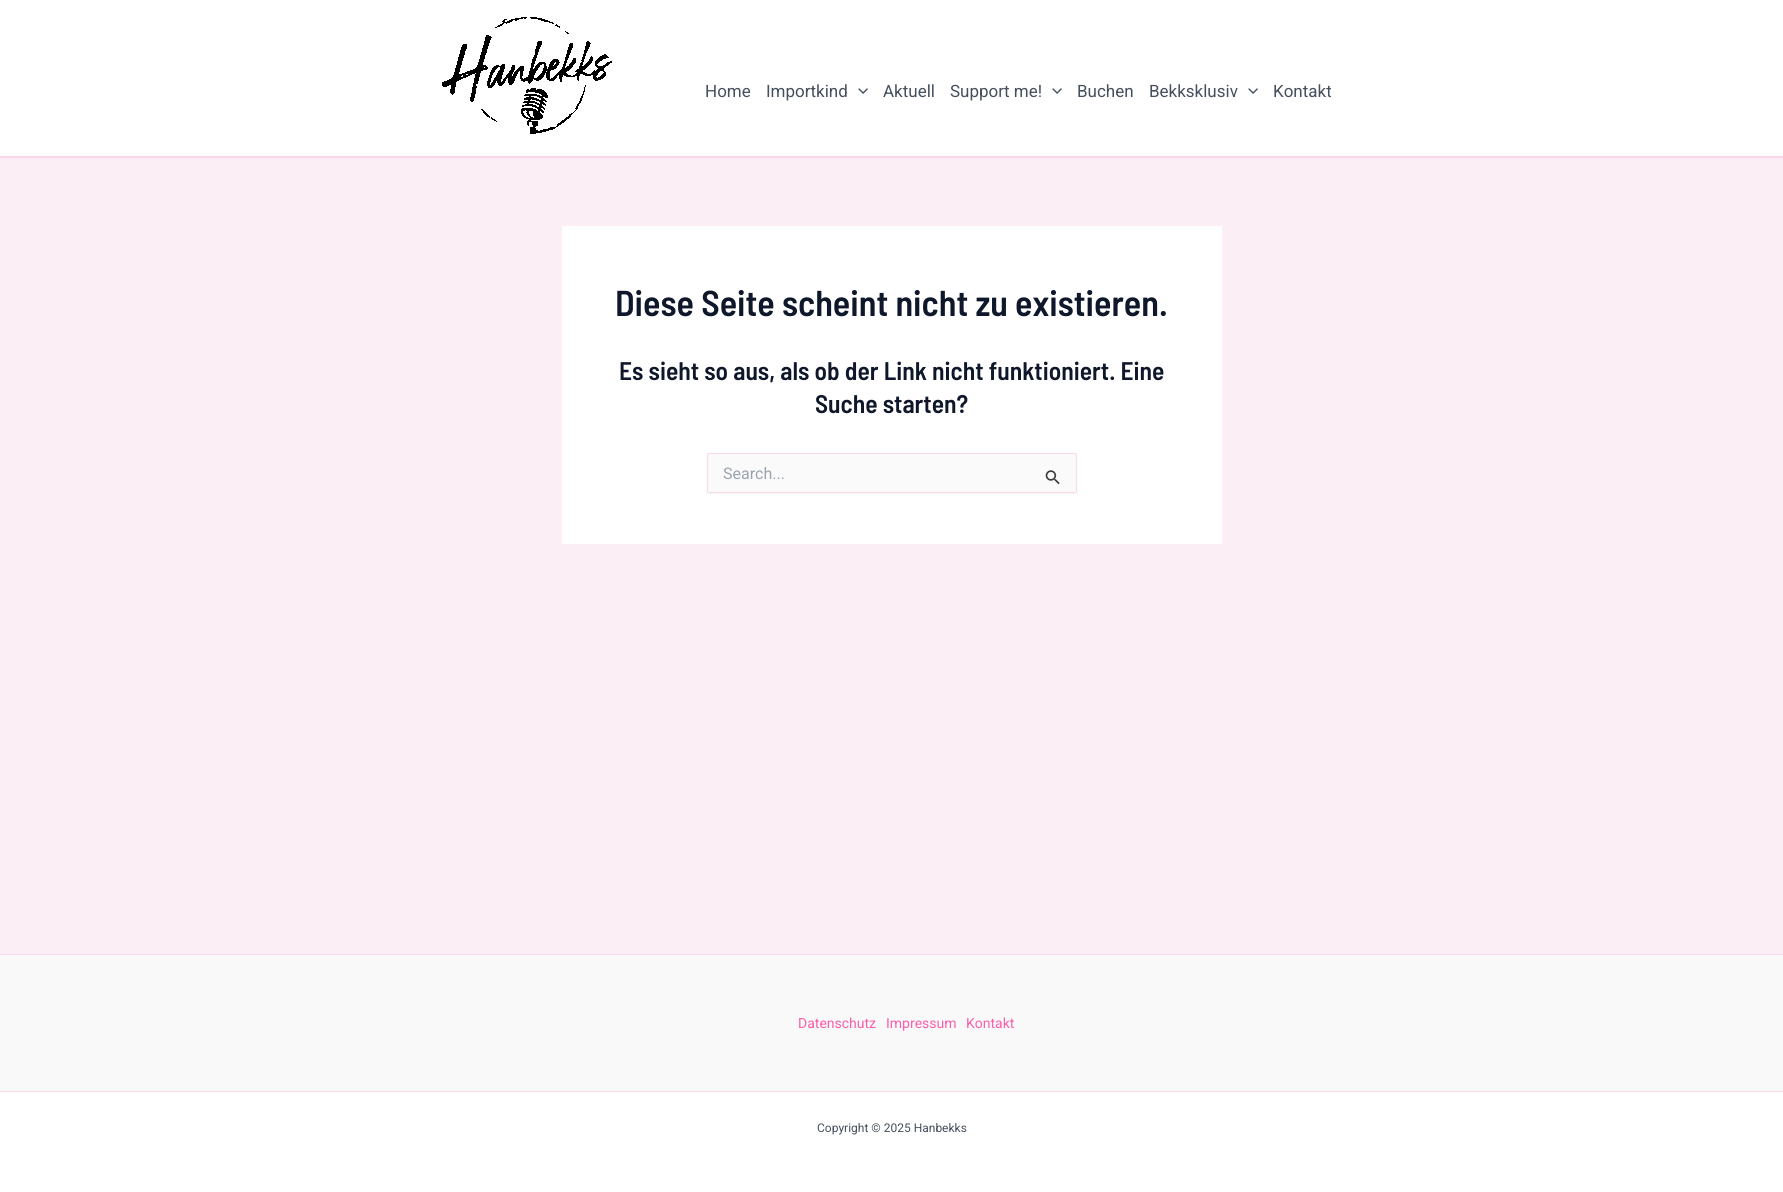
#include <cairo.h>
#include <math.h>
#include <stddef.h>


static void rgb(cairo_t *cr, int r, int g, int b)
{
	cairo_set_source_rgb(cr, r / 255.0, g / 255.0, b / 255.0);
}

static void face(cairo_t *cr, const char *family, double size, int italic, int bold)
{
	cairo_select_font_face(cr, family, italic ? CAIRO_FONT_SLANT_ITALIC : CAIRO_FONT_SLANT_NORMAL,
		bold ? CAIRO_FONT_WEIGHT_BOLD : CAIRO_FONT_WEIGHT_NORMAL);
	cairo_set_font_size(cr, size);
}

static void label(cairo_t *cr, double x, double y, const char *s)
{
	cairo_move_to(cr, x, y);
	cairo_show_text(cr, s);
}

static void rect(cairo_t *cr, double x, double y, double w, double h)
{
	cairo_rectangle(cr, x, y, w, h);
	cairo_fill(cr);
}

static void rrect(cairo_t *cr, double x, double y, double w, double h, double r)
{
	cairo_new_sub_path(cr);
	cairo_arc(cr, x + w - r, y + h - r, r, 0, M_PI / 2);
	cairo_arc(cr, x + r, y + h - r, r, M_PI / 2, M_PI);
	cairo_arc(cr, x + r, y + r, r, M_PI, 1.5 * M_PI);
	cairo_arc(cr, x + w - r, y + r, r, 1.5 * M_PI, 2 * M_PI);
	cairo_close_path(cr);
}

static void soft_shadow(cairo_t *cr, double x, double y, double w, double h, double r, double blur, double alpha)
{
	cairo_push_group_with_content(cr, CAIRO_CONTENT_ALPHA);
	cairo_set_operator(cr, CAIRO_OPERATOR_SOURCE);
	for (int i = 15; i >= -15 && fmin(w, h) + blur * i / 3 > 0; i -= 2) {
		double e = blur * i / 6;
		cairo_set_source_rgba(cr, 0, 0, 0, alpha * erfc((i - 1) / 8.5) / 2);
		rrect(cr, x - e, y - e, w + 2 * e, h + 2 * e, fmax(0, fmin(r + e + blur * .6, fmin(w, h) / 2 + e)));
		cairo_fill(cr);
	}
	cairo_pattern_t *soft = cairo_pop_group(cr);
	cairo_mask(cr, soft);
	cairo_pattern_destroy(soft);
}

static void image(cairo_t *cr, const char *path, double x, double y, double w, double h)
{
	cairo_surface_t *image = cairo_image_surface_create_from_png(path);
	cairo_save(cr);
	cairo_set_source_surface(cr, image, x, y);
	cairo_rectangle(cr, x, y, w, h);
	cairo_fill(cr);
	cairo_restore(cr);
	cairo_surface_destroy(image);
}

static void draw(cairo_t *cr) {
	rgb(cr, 252, 238, 245);
	cairo_paint(cr);
	rgb(cr, 255, 255, 255);
	rect(cr, 0, 0, 1783, 156);
	rgb(cr, 250, 216, 233);
	rect(cr, 0, 156, 1783, 2);
	image(cr, "image0.png", 442, 17, 170, 117);
	face(cr, "Roboto", 17, 0, 0);
	rgb(cr, 69, 79, 94);
	label(cr, 705, 97, "Home");
	label(cr, 766, 97, "Importkind");
	image(cr, "image1.png", 858, 88, 10, 6);
	label(cr, 883, 97, "Aktuell");
	label(cr, 950, 97, "Support me!");
	image(cr, "image1.png", 1052, 88, 10, 6);
	label(cr, 1077, 97, "Buchen");
	label(cr, 1149, 97, "Bekksklusiv");
	image(cr, "image1.png", 1248, 88, 10, 6);
	label(cr, 1273, 97, "Kontakt");
	rgb(cr, 255, 255, 255);
	rect(cr, 562, 226, 660, 318);
	face(cr, "Barlow Semi Condensed SemiBold", 36, 0, 0);
	rgb(cr, 15, 23, 42);
	label(cr, 615, 316, "Diese Seite scheint nicht zu existieren.");
	face(cr, "Barlow Semi Condensed SemiBold", 25.5, 0, 0);
	label(cr, 619, 380, "Es sieht so aus, als ob der Link nicht funktioniert. Eine");
	label(cr, 815, 413, "Suche starten?");
	rgb(cr, 0, 0, 0);
	soft_shadow(cr, 707, 454, 370, 40, 2, 1, 0.05);
	rgb(cr, 250, 250, 250);
	rrect(cr, 707.5, 453.5, 369, 39, 1.5);
	cairo_fill_preserve(cr);
	rgb(cr, 250, 216, 233);
	cairo_set_line_width(cr, 1);
	cairo_stroke(cr);
	face(cr, "Roboto", 16, 0, 0);
	rgb(cr, 156, 163, 175);
	label(cr, 723, 479, "Search...");
	image(cr, "image2.png", 1045, 470, 15, 15);
	rgb(cr, 249, 249, 249);
	rect(cr, 0, 955, 1783, 136);
	rgb(cr, 250, 216, 233);
	rect(cr, 0, 954, 1783, 1);
	face(cr, "Roboto", 14, 0, 0);
	rgb(cr, 251, 95, 171);
	label(cr, 798, 1028, "Datenschutz");
	label(cr, 886, 1028, "Impressum");
	label(cr, 966, 1028, "Kontakt");
	rgb(cr, 255, 255, 255);
	rect(cr, 0, 1092, 1783, 100);
	rgb(cr, 250, 216, 233);
	rect(cr, 0, 1091, 1783, 1);
	face(cr, "Roboto", 12, 0, 0);
	rgb(cr, 69, 79, 94);
	label(cr, 817, 1132, "Copyright © 2025 Hanbekks");
}

int main(void) {
	cairo_surface_t *surface = cairo_image_surface_create(CAIRO_FORMAT_RGB24, 1783, 1192);
	cairo_t *cr = cairo_create(surface);
	cairo_font_options_t *options = cairo_font_options_create();
	cairo_font_options_set_hint_metrics(options, CAIRO_HINT_METRICS_OFF);
	cairo_font_options_set_hint_style(options, CAIRO_HINT_STYLE_NONE);
	cairo_set_font_options(cr, options);
	cairo_set_miter_limit(cr, 4);
	draw(cr);
	cairo_surface_write_to_png(surface, "render.png");
	cairo_font_options_destroy(options);
	cairo_destroy(cr);
	cairo_surface_destroy(surface);
	return 0;
}
